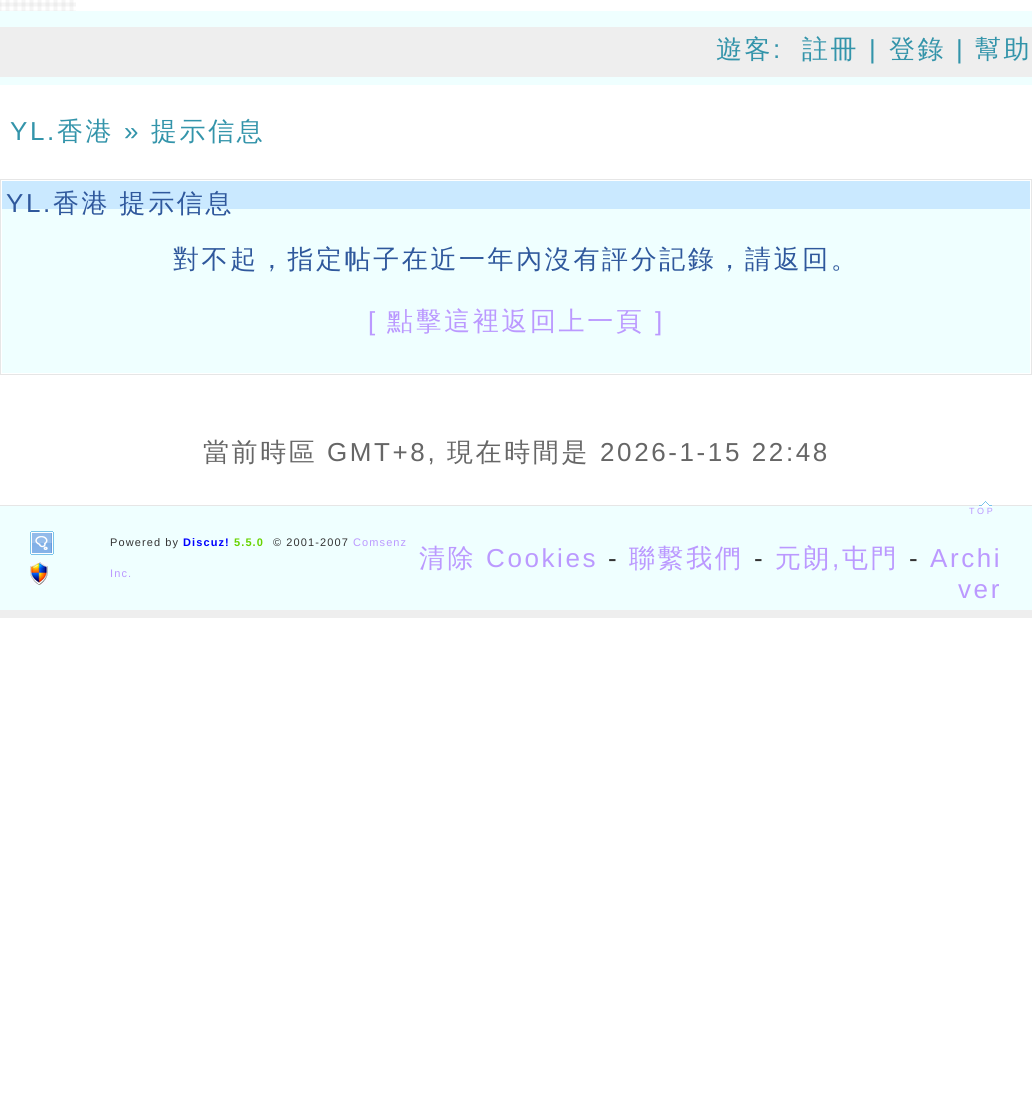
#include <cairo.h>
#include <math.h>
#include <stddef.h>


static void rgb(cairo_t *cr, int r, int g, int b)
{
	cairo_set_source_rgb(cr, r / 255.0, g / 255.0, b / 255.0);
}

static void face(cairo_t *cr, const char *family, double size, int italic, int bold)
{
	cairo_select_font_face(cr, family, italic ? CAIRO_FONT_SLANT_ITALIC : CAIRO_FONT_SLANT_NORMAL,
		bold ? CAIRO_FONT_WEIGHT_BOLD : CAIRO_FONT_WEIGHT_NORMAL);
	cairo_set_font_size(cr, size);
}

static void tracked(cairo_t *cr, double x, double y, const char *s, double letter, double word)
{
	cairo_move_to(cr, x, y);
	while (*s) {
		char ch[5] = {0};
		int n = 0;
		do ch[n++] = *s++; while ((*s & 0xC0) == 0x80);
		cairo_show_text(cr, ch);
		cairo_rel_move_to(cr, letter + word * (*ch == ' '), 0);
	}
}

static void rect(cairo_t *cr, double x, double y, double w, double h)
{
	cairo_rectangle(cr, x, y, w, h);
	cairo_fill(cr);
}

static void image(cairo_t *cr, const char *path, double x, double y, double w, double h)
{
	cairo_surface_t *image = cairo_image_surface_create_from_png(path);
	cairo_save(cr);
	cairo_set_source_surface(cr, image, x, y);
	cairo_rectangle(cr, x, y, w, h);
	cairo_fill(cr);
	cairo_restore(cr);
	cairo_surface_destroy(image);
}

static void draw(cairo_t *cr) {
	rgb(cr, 255, 255, 255);
	cairo_paint(cr);
	image(cr, "image0.png", 0, 0, 76, 11);
	rgb(cr, 239, 255, 255);
	rect(cr, 0, 11, 1032, 74);
	rgb(cr, 238, 238, 238);
	rect(cr, 0, 27, 1032, 50);
	face(cr, "WenQuanYi Zen Hei Medium", 26, 0, 0);
	rgb(cr, 51, 148, 170);
	tracked(cr, 716, 58, "遊客", 2.6, 0);
	face(cr, "Liberation Sans", 26, 0, 0);
	tracked(cr, 773, 58, ":", 2.6, 0);
	face(cr, "WenQuanYi Zen Hei Medium", 26, 0, 0);
	tracked(cr, 802, 58, "註冊", 2.6, 0);
	face(cr, "Liberation Sans", 26, 0, 0);
	tracked(cr, 869, 58, "|", 2.6, 0);
	face(cr, "WenQuanYi Zen Hei Medium", 26, 0, 0);
	tracked(cr, 889, 58, "登錄", 2.6, 0);
	face(cr, "Liberation Sans", 26, 0, 0);
	tracked(cr, 956, 58, "|", 2.6, 0);
	face(cr, "WenQuanYi Zen Hei Medium", 26, 0, 0);
	tracked(cr, 975, 58, "幫助", 2.6, 0);
	face(cr, "Liberation Sans", 26, 0, 0);
	tracked(cr, 10, 140, "YL.", 2.6, 0);
	face(cr, "WenQuanYi Zen Hei Medium", 26, 0, 0);
	tracked(cr, 57, 140, "香港", 2.6, 0);
	face(cr, "Liberation Sans", 26, 0, 0);
	tracked(cr, 124, 140, "»", 2.6, 0);
	face(cr, "WenQuanYi Zen Hei Medium", 26, 0, 0);
	tracked(cr, 151, 140, "提示信息", 2.6, 0);
	cairo_rectangle(cr, 0.5, 179.5, 1031, 195);
	rgb(cr, 230, 230, 230);
	cairo_set_line_width(cr, 1);
	cairo_stroke(cr);
	rgb(cr, 202, 233, 255);
	rect(cr, 2, 181, 1028, 28);
	rgb(cr, 239, 255, 255);
	rect(cr, 2, 209, 1028, 164);
	face(cr, "Liberation Sans", 26, 0, 0);
	rgb(cr, 47, 88, 156);
	tracked(cr, 6, 212, "YL.", 2.6, 0);
	face(cr, "WenQuanYi Zen Hei Medium", 26, 0, 0);
	tracked(cr, 53, 212, "香港 提示信息", 2.6, -1);
	tracked(cr, 173, 268, "對不起，指定帖子在近一年內沒有評分記錄，請返回。", 2.6, 0);
	face(cr, "Liberation Sans", 26, 0, 0);
	rgb(cr, 187, 153, 255);
	tracked(cr, 368, 330, "[", 2.6, 0);
	face(cr, "WenQuanYi Zen Hei Medium", 26, 0, 0);
	tracked(cr, 387, 330, "點擊這裡返回上一頁", 2.6, 0);
	face(cr, "Liberation Sans", 26, 0, 0);
	tracked(cr, 655, 330, "]", 2.6, 0);
	face(cr, "WenQuanYi Zen Hei Medium", 26, 0, 0);
	rgb(cr, 102, 102, 102);
	tracked(cr, 203, 461, "當前時區", 2.6, 0);
	face(cr, "Liberation Sans", 26, 0, 0);
	tracked(cr, 327, 461, "GMT+8,", 2.6, 0);
	face(cr, "WenQuanYi Zen Hei Medium", 26, 0, 0);
	tracked(cr, 447, 461, "現在時間是", 2.6, 0);
	face(cr, "Liberation Sans", 26, 0, 0);
	tracked(cr, 600, 461, "2026-1-15 22:48", 2.6, 0);
	rgb(cr, 230, 230, 230);
	rect(cr, 0, 505, 1032, 1);
	rgb(cr, 239, 255, 255);
	rect(cr, 0, 506, 1032, 104);
	rgb(cr, 255, 255, 255);
	rect(cr, 979, 505, 13, 2);
	image(cr, "image1.png", 979, 501, 13, 5);
	image(cr, "image2.png", 30, 531, 24, 24);
	image(cr, "image3.png", 30, 562, 18, 23);
	face(cr, "Liberation Sans", 11, 0, 0);
	rgb(cr, 51, 51, 51);
	tracked(cr, 110, 546, "Powered by", 1.1, 0);
	face(cr, "Liberation Sans", 11, 0, 1);
	rgb(cr, 0, 0, 255);
	tracked(cr, 183, 546, "Discuz!", 1.1, 0);
	rgb(cr, 104, 211, 0);
	tracked(cr, 234, 546, "5.5.0", 1.1, 0);
	face(cr, "Liberation Sans", 11, 0, 0);
	rgb(cr, 51, 51, 51);
	tracked(cr, 273, 546, "© 2001-2007", 1.1, 0);
	rgb(cr, 187, 153, 255);
	tracked(cr, 353, 546, "Comsenz", 1.1, 0);
	tracked(cr, 110, 577, "Inc.", 1.1, 0);
	face(cr, "Liberation Sans", 9, 0, 0);
	tracked(cr, 969, 514, "TOP", 2.6, 0);
	face(cr, "WenQuanYi Zen Hei Medium", 26, 0, 0);
	tracked(cr, 419, 567, "清除", 2.6, 0);
	face(cr, "Liberation Sans", 26, 0, 0);
	tracked(cr, 486, 567, "Cookies", 2.6, 0);
	rgb(cr, 51, 51, 51);
	tracked(cr, 608, 567, "-", 2.6, 0);
	face(cr, "WenQuanYi Zen Hei Medium", 26, 0, 0);
	rgb(cr, 187, 153, 255);
	tracked(cr, 629, 567, "聯繫我們", 2.6, 0);
	face(cr, "Liberation Sans", 26, 0, 0);
	rgb(cr, 51, 51, 51);
	tracked(cr, 754, 567, "-", 2.6, 0);
	face(cr, "WenQuanYi Zen Hei Medium", 26, 0, 0);
	rgb(cr, 187, 153, 255);
	tracked(cr, 775, 567, "元朗", 2.6, 0);
	tracked(cr, 842, 567, "屯門", 2.6, 0);
	face(cr, "Liberation Sans", 26, 0, 0);
	rgb(cr, 51, 51, 51);
	tracked(cr, 909, 567, "-", 2.6, 0);
	rgb(cr, 187, 153, 255);
	tracked(cr, 930, 567, "Archi", 2.6, 0);
	tracked(cr, 832, 567, ",", 2.6, 0);
	tracked(cr, 958, 598, "ver", 2.6, 0);
	rgb(cr, 238, 238, 238);
	rect(cr, 0, 610, 1032, 8);
}

int main(void) {
	cairo_surface_t *surface = cairo_image_surface_create(CAIRO_FORMAT_RGB24, 1032, 1093);
	cairo_t *cr = cairo_create(surface);
	cairo_font_options_t *options = cairo_font_options_create();
	cairo_font_options_set_hint_metrics(options, CAIRO_HINT_METRICS_OFF);
	cairo_font_options_set_hint_style(options, CAIRO_HINT_STYLE_NONE);
	cairo_set_font_options(cr, options);
	cairo_set_miter_limit(cr, 4);
	draw(cr);
	cairo_surface_write_to_png(surface, "render.png");
	cairo_font_options_destroy(options);
	cairo_destroy(cr);
	cairo_surface_destroy(surface);
	return 0;
}
